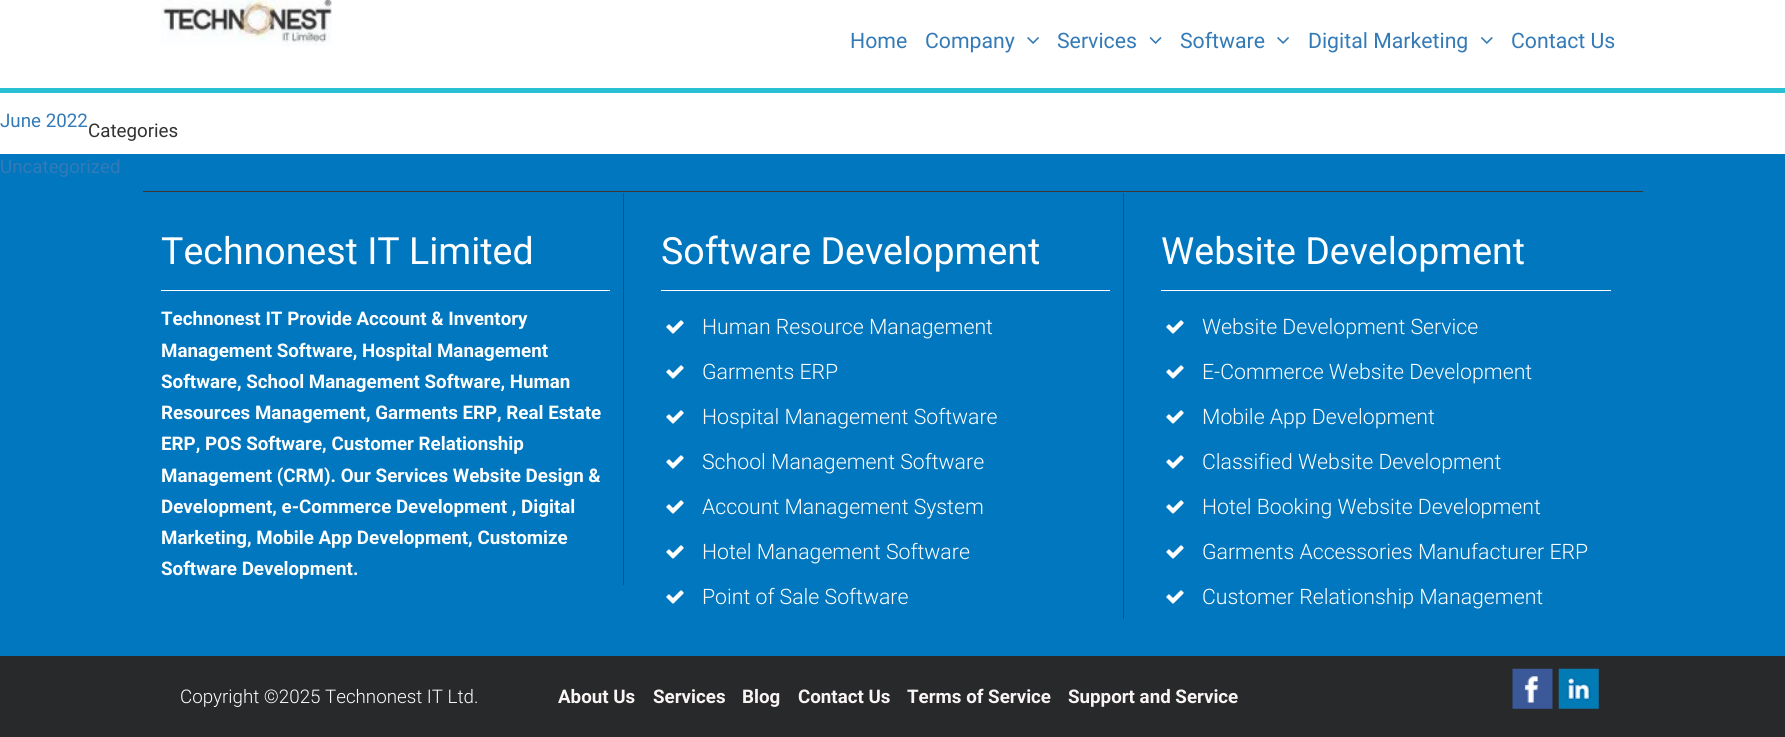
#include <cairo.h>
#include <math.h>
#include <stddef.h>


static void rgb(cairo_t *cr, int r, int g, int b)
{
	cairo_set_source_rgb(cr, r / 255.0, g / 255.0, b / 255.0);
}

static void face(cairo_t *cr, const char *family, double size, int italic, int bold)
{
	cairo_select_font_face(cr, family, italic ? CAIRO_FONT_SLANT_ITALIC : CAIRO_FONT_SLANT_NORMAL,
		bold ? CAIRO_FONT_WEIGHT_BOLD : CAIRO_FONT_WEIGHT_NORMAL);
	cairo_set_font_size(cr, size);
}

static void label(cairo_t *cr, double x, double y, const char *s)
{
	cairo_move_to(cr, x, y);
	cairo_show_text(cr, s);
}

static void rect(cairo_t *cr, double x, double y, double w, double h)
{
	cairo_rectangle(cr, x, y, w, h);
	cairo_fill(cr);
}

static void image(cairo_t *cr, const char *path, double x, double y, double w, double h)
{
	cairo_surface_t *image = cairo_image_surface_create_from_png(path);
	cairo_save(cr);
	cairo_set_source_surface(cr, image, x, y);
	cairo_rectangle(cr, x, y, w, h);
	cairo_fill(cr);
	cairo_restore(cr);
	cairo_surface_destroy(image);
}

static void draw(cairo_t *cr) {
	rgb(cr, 255, 255, 255);
	cairo_paint(cr);
	rgb(cr, 41, 192, 212);
	rect(cr, 0, 88, 1785, 5);
	image(cr, "image0.png", 161, 0, 171, 46);
	face(cr, "Roboto", 21.25, 0, 0);
	rgb(cr, 51, 122, 183);
	label(cr, 850, 48, "Home");
	label(cr, 925, 48, "Company");
	image(cr, "image1.png", 1027, 37, 12, 7);
	label(cr, 1057, 48, "Services");
	image(cr, "image2.png", 1149, 37, 13, 7);
	label(cr, 1180, 48, "Software");
	image(cr, "image1.png", 1277, 37, 12, 7);
	label(cr, 1308, 48, "Digital Marketing");
	image(cr, "image3.png", 1481, 37, 12, 7);
	label(cr, 1511, 48, "Contact Us");
	face(cr, "Roboto", 18.75, 0, 0);
	label(cr, 0, 127, "June 2022");
	rgb(cr, 51, 51, 51);
	label(cr, 88, 137, "Categories");
	rgb(cr, 0, 119, 191);
	rect(cr, 0, 154, 1785, 502);
	rgb(cr, 51, 122, 183);
	label(cr, 0, 173, "Uncategorized");
	rgb(cr, 62, 53, 53);
	rect(cr, 143, 191, 1500, 1);
	rgb(cr, 68, 67, 67);
	rect(cr, 623, 193, 1, 392);
	rgb(cr, 255, 255, 255);
	rect(cr, 161, 290, 449, 1);
	face(cr, "Roboto", 37.5, 0, 0);
	label(cr, 161, 264, "Technonest IT Limited");
	face(cr, "Roboto", 18.75, 0, 1);
	label(cr, 161, 325, "Technonest IT Provide Account & Inventory");
	label(cr, 161, 357, "Management Software, Hospital Management");
	label(cr, 161, 388, "Software, School Management Software, Human");
	label(cr, 161, 419, "Resources Management, Garments ERP, Real Estate");
	label(cr, 161, 450, "ERP, POS Software, Customer Relationship");
	label(cr, 161, 482, "Management (CRM). Our Services Website Design &");
	label(cr, 161, 513, "Development, e-Commerce Development , Digital");
	label(cr, 161, 544, "Marketing, Mobile App Development, Customize");
	label(cr, 161, 575, "Software Development.");
	rgb(cr, 68, 67, 67);
	rect(cr, 1123, 193, 1, 426);
	rgb(cr, 255, 255, 255);
	rect(cr, 661, 290, 449, 1);
	face(cr, "Roboto", 37.5, 0, 0);
	label(cr, 661, 264, "Software Development");
	image(cr, "image4.png", 666, 320, 18, 14);
	face(cr, "Roboto Light", 21.25, 0, 0);
	label(cr, 702, 334, "Human Resource Management");
	image(cr, "image4.png", 666, 365, 18, 14);
	label(cr, 702, 379, "Garments ERP");
	image(cr, "image4.png", 666, 410, 18, 14);
	label(cr, 702, 424, "Hospital Management Software");
	image(cr, "image4.png", 666, 455, 18, 14);
	label(cr, 702, 469, "School Management Software");
	image(cr, "image4.png", 666, 500, 18, 14);
	label(cr, 702, 514, "Account Management System");
	image(cr, "image4.png", 666, 545, 18, 14);
	label(cr, 702, 559, "Hotel Management Software");
	image(cr, "image4.png", 666, 590, 18, 14);
	label(cr, 702, 604, "Point of Sale Software");
	rect(cr, 1161, 290, 450, 1);
	face(cr, "Roboto", 37.5, 0, 0);
	label(cr, 1161, 264, "Website Development");
	image(cr, "image4.png", 1166, 320, 18, 14);
	face(cr, "Roboto Light", 21.25, 0, 0);
	label(cr, 1202, 334, "Website Development Service");
	image(cr, "image4.png", 1166, 365, 18, 14);
	label(cr, 1202, 379, "E-Commerce Website Development");
	image(cr, "image4.png", 1166, 410, 18, 14);
	label(cr, 1202, 424, "Mobile App Development");
	image(cr, "image4.png", 1166, 455, 18, 14);
	label(cr, 1202, 469, "Classified Website Development");
	image(cr, "image4.png", 1166, 500, 18, 14);
	label(cr, 1202, 514, "Hotel Booking Website Development");
	image(cr, "image4.png", 1166, 545, 18, 14);
	label(cr, 1202, 559, "Garments Accessories Manufacturer ERP");
	image(cr, "image4.png", 1166, 590, 18, 14);
	label(cr, 1202, 604, "Customer Relationship Management");
	rgb(cr, 39, 41, 43);
	rect(cr, 0, 656, 1785, 81);
	face(cr, "Roboto Light", 18.75, 0, 0);
	rgb(cr, 255, 255, 255);
	label(cr, 180, 703, "Copyright ©2025 Technonest IT Ltd.");
	face(cr, "Roboto", 18.75, 0, 1);
	rgb(cr, 250, 244, 244);
	label(cr, 558, 703, "About Us");
	label(cr, 653, 703, "Services");
	label(cr, 742, 703, "Blog");
	label(cr, 798, 703, "Contact Us");
	label(cr, 907, 703, "Terms of Service");
	label(cr, 1068, 703, "Support and Service");
	image(cr, "image5.png", 1512, 668, 41, 41);
	image(cr, "image6.png", 1558, 668, 41, 41);
}

int main(void) {
	cairo_surface_t *surface = cairo_image_surface_create(CAIRO_FORMAT_RGB24, 1785, 737);
	cairo_t *cr = cairo_create(surface);
	cairo_font_options_t *options = cairo_font_options_create();
	cairo_font_options_set_hint_metrics(options, CAIRO_HINT_METRICS_OFF);
	cairo_font_options_set_hint_style(options, CAIRO_HINT_STYLE_NONE);
	cairo_set_font_options(cr, options);
	cairo_set_miter_limit(cr, 4);
	draw(cr);
	cairo_surface_write_to_png(surface, "render.png");
	cairo_font_options_destroy(options);
	cairo_destroy(cr);
	cairo_surface_destroy(surface);
	return 0;
}
